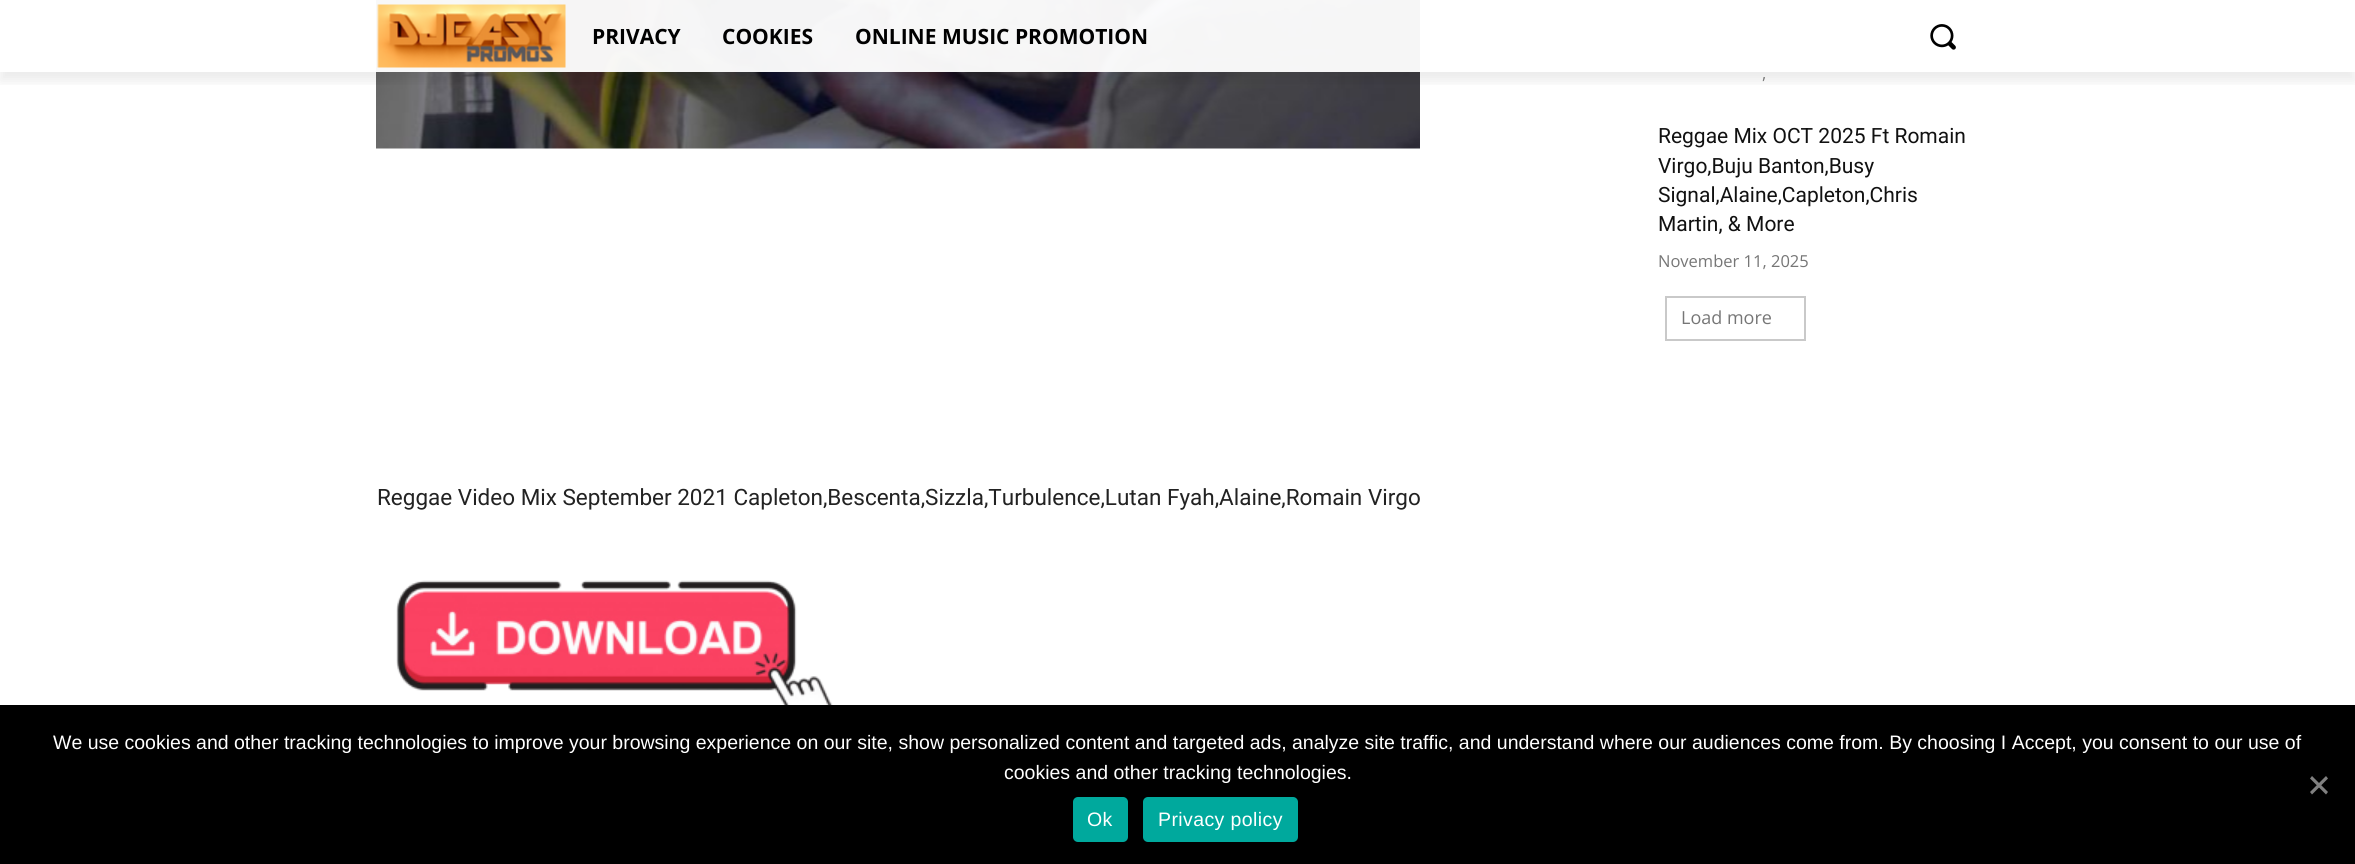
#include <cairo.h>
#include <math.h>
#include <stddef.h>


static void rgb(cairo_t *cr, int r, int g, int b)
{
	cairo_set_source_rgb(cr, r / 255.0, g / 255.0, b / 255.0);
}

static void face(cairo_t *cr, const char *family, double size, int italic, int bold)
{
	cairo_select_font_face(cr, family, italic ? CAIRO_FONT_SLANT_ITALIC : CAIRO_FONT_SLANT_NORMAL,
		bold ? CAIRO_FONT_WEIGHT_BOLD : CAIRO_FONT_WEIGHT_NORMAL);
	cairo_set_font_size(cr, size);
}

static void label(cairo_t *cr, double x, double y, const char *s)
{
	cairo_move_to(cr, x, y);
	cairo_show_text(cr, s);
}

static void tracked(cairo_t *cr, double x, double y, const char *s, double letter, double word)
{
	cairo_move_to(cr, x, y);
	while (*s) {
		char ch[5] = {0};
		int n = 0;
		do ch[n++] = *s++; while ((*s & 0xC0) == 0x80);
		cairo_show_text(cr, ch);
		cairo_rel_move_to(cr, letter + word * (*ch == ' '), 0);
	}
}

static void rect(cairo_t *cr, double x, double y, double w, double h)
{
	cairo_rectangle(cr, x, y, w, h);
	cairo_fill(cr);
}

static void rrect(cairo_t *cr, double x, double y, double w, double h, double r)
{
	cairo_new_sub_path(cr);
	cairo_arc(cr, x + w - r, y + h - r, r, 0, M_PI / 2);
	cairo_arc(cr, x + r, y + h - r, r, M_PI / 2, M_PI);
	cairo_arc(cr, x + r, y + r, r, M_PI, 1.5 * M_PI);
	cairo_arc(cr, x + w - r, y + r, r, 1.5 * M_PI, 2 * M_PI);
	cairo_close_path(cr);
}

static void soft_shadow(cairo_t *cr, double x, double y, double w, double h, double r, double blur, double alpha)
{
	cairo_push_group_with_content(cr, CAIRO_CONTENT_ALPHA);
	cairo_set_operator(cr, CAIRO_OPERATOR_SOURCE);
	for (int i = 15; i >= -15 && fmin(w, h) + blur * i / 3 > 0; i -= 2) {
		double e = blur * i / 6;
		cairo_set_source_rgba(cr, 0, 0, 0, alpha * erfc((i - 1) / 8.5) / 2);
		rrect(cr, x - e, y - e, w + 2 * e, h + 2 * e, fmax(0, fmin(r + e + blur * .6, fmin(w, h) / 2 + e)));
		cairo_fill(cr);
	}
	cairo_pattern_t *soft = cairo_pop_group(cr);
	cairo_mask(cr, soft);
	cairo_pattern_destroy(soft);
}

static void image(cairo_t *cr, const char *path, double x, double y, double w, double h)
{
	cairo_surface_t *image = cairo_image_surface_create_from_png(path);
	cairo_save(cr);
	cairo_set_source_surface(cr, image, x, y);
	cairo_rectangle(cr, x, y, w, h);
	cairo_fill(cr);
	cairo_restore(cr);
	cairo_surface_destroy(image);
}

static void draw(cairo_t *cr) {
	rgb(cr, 255, 255, 255);
	cairo_paint(cr);
	image(cr, "image2.png", 376, 0, 1044, 149);
	cairo_set_source_rgba(cr, 1, 1, 1, 0.95);
	rect(cr, 376, 0, 1044, 72);
	image(cr, "image0.png", 377, 4, 189, 64);
	cairo_save(cr);
	cairo_rectangle(cr, 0, 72, 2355, 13);
	cairo_clip(cr);
	rgb(cr, 0, 0, 0);
	soft_shadow(cr, 0, 9, 2355, 72, 0, 6, 0.08);
	cairo_restore(cr);
	face(cr, "Open Sans", 21, 0, 1);
	rgb(cr, 0, 0, 0);
	label(cr, 592, 44, "PRIVACY");
	label(cr, 722, 44, "COOKIES");
	label(cr, 855, 44, "ONLINE MUSIC PROMOTION");
	image(cr, "image1.png", 1930, 24, 26, 26);
	face(cr, "Open Sans", 16.5, 0, 0);
	rgb(cr, 118, 118, 118);
	label(cr, 1762, 79, ",");
	face(cr, "Roboto", 21, 0, 0);
	rgb(cr, 17, 17, 17);
	label(cr, 1658, 143, "Reggae Mix OCT 2025 Ft Romain");
	label(cr, 1658, 173, "Virgo,Buju Banton,Busy");
	label(cr, 1658, 202, "Signal,Alaine,Capleton,Chris");
	label(cr, 1658, 231, "Martin, & More");
	face(cr, "Open Sans", 16.5, 0, 0);
	rgb(cr, 118, 118, 118);
	label(cr, 1658, 267, "November 11, 2025");
	cairo_rectangle(cr, 1666, 297, 139, 43);
	rgb(cr, 201, 201, 201);
	cairo_stroke(cr);
	face(cr, "Open Sans", 18, 0, 0);
	rgb(cr, 118, 118, 118);
	label(cr, 1681, 324, "Load more");
	face(cr, "Roboto", 22.5, 0, 0);
	rgb(cr, 34, 34, 34);
	label(cr, 377, 505, "Reggae Video Mix September 2021 Capleton,Bescenta,Sizzla,Turbulence,Lutan Fyah,Alaine,Romain Virgo");
	image(cr, "image3.png", 396, 580, 437, 125);
	rgb(cr, 0, 0, 0);
	rect(cr, 0, 705, 2355, 159);
	face(cr, "Liberation Sans", 19.5, 0, 0);
	rgb(cr, 255, 255, 255);
	label(cr, 53, 749, "We use cookies and other tracking technologies to improve your browsing experience on our site, show personalized content and targeted ads, analyze site traffic, and understand where our audiences come from. By choosing I Accept, you consent to our use of");
	label(cr, 1004, 779, "cookies and other tracking technologies.");
	rgb(cr, 128, 128, 128);
	cairo_new_path(cr);
	cairo_move_to(cr, 2326, 776);
	cairo_line_to(cr, 2328, 778.5);
	cairo_line_to(cr, 2312, 794.5);
	cairo_line_to(cr, 2310, 792);
	cairo_close_path(cr);
	cairo_fill(cr);
	cairo_new_path(cr);
	cairo_move_to(cr, 2310, 778.5);
	cairo_line_to(cr, 2312, 776);
	cairo_line_to(cr, 2328, 792);
	cairo_line_to(cr, 2326, 794.5);
	cairo_close_path(cr);
	cairo_fill(cr);
	rgb(cr, 0, 169, 157);
	rrect(cr, 1073, 797, 55, 45, 5);
	cairo_fill(cr);
	rgb(cr, 255, 255, 255);
	tracked(cr, 1087, 826, "Ok", 0.4, 0);
	rgb(cr, 0, 169, 157);
	rrect(cr, 1143, 797, 155, 45, 5);
	cairo_fill(cr);
	rgb(cr, 255, 255, 255);
	tracked(cr, 1158, 826, "Privacy policy", 0.4, 0);
}

int main(void) {
	cairo_surface_t *surface = cairo_image_surface_create(CAIRO_FORMAT_RGB24, 2355, 864);
	cairo_t *cr = cairo_create(surface);
	cairo_font_options_t *options = cairo_font_options_create();
	cairo_font_options_set_hint_metrics(options, CAIRO_HINT_METRICS_OFF);
	cairo_font_options_set_hint_style(options, CAIRO_HINT_STYLE_NONE);
	cairo_set_font_options(cr, options);
	cairo_set_miter_limit(cr, 4);
	draw(cr);
	cairo_surface_write_to_png(surface, "render.png");
	cairo_font_options_destroy(options);
	cairo_destroy(cr);
	cairo_surface_destroy(surface);
	return 0;
}
